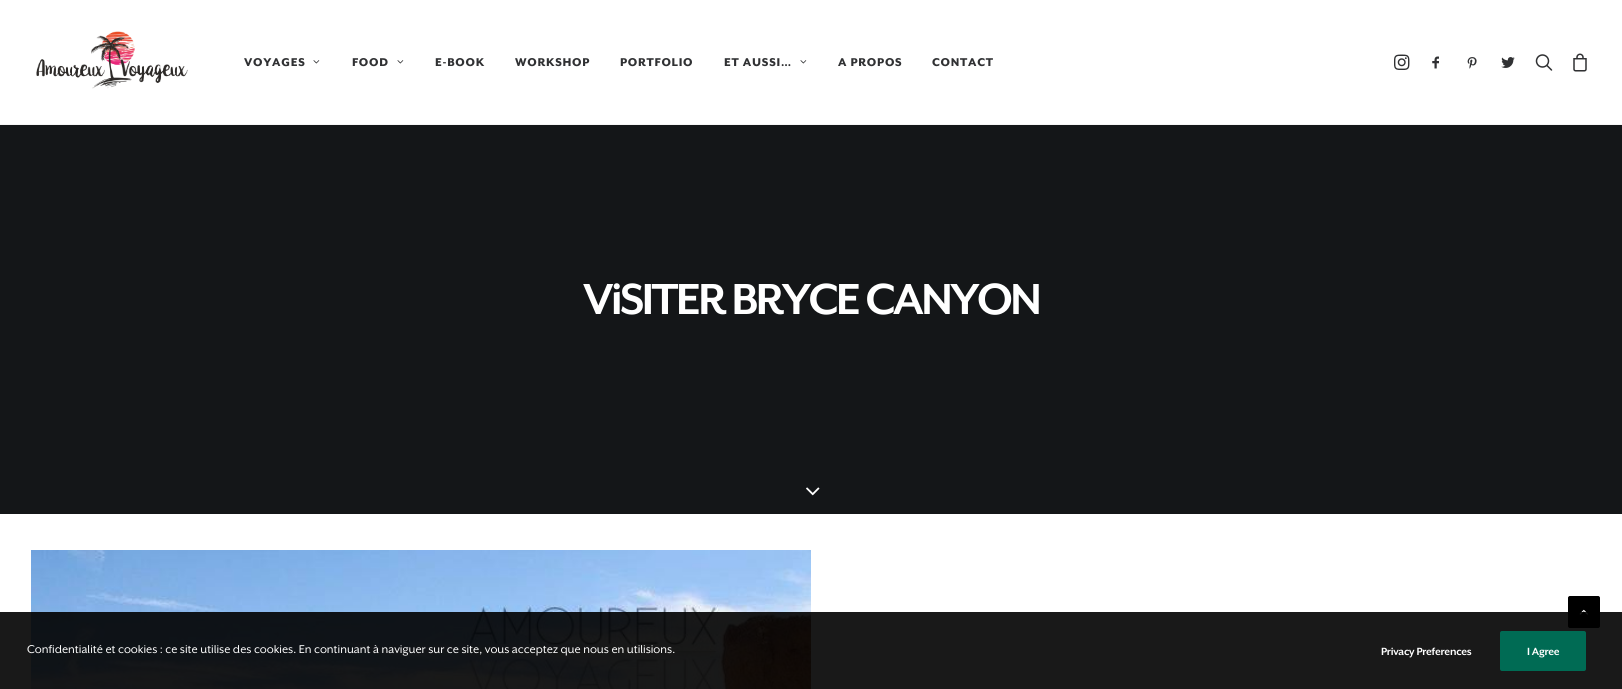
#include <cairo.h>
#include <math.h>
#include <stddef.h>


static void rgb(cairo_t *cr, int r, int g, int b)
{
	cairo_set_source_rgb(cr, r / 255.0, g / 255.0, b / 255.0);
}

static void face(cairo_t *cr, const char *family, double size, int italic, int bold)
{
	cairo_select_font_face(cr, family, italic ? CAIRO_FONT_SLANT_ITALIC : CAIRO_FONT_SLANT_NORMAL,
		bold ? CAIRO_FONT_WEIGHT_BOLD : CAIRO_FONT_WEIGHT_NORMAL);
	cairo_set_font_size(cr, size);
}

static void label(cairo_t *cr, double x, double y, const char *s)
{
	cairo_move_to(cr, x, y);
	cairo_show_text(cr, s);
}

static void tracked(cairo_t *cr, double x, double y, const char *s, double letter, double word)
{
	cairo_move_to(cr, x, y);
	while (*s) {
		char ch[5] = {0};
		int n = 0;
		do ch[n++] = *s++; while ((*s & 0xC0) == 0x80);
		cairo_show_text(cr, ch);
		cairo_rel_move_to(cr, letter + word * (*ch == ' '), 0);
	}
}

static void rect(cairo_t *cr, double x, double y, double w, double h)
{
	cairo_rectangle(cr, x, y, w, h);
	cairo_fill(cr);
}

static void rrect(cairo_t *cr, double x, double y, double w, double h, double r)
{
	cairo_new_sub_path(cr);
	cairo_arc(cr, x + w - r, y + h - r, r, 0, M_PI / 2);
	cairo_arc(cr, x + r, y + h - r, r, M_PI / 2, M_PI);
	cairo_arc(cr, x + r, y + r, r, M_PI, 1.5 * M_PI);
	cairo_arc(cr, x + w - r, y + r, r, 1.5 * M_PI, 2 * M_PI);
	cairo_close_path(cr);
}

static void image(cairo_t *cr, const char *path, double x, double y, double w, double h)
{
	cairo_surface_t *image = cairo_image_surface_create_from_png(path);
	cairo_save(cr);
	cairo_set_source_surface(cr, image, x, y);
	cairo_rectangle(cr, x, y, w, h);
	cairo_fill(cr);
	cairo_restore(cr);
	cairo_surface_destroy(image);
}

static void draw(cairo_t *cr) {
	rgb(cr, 20, 22, 24);
	cairo_paint(cr);
	rgb(cr, 255, 255, 255);
	rect(cr, 0, 0, 1622, 124);
	rgb(cr, 245, 245, 245);
	rect(cr, 0, 124, 1622, 1);
	image(cr, "image0.png", 36, 31, 152, 58);
	face(cr, "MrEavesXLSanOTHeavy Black", 13, 0, 0);
	rgb(cr, 48, 49, 51);
	tracked(cr, 244, 66, "VOYAGES", 0.75, 0);
	image(cr, "image1.png", 313, 60, 7, 4);
	tracked(cr, 352, 66, "FOOD", 0.75, 0);
	image(cr, "image1.png", 397, 60, 7, 4);
	tracked(cr, 435, 66, "E-BOOK", 0.75, 0);
	tracked(cr, 515, 66, "WORKSHOP", 0.75, 0);
	tracked(cr, 620, 66, "PORTFOLIO", 0.75, 0);
	tracked(cr, 724, 66, "ET AUSSI…", 0.75, 0);
	image(cr, "image1.png", 800, 60, 7, 4);
	tracked(cr, 838, 66, "A PROPOS", 0.75, 0);
	tracked(cr, 932, 66, "CONTACT", 0.75, 0);
	image(cr, "image2.png", 1394, 54, 16, 16);
	image(cr, "image3.png", 1432, 56, 7, 13);
	image(cr, "image4.png", 1467, 57, 10, 12);
	image(cr, "image5.png", 1501, 57, 14, 11);
	image(cr, "image6.png", 1535, 54, 18, 17);
	image(cr, "image7.png", 1573, 53, 14, 19);
	face(cr, "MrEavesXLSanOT", 50, 0, 1);
	rgb(cr, 255, 255, 255);
	tracked(cr, 583, 314, "ViSITER BRYCE CANYON", -2.5, 0);
	image(cr, "image8.png", 806, 487, 14, 9);
	rect(cr, 0, 514, 1622, 175);
	image(cr, "image9.png", 31, 550, 780, 139);
	rgb(cr, 0, 0, 0);
	rrect(cr, 1568.5, 596.5, 31, 31, 1.5);
	cairo_fill_preserve(cr);
	cairo_set_line_width(cr, 1);
	cairo_stroke(cr);
	image(cr, "image10.png", 1579, 609, 9, 6);
	cairo_set_source_rgba(cr, 0, 0, 0, 0.9);
	rect(cr, 0, 612, 1622, 77);
	face(cr, "MrEavesXLSanOT", 13, 0, 0);
	rgb(cr, 255, 255, 255);
	label(cr, 27, 653, "Confidentialité et cookies : ce site utilise des cookies. En continuant à naviguer sur ce site, vous acceptez que nous en utilisions.");
	face(cr, "MrEavesXLSanOT", 12, 0, 1);
	tracked(cr, 1381, 655, "Privacy Preferences", -0.25, 0);
	rgb(cr, 0, 107, 84);
	rrect(cr, 1500, 631, 86, 40, 2);
	cairo_fill(cr);
	rgb(cr, 255, 255, 255);
	tracked(cr, 1527, 655, "I Agree", -0.25, 0);
}

int main(void) {
	cairo_surface_t *surface = cairo_image_surface_create(CAIRO_FORMAT_RGB24, 1622, 689);
	cairo_t *cr = cairo_create(surface);
	cairo_font_options_t *options = cairo_font_options_create();
	cairo_font_options_set_hint_metrics(options, CAIRO_HINT_METRICS_OFF);
	cairo_font_options_set_hint_style(options, CAIRO_HINT_STYLE_NONE);
	cairo_set_font_options(cr, options);
	cairo_set_miter_limit(cr, 4);
	draw(cr);
	cairo_surface_write_to_png(surface, "render.png");
	cairo_font_options_destroy(options);
	cairo_destroy(cr);
	cairo_surface_destroy(surface);
	return 0;
}
